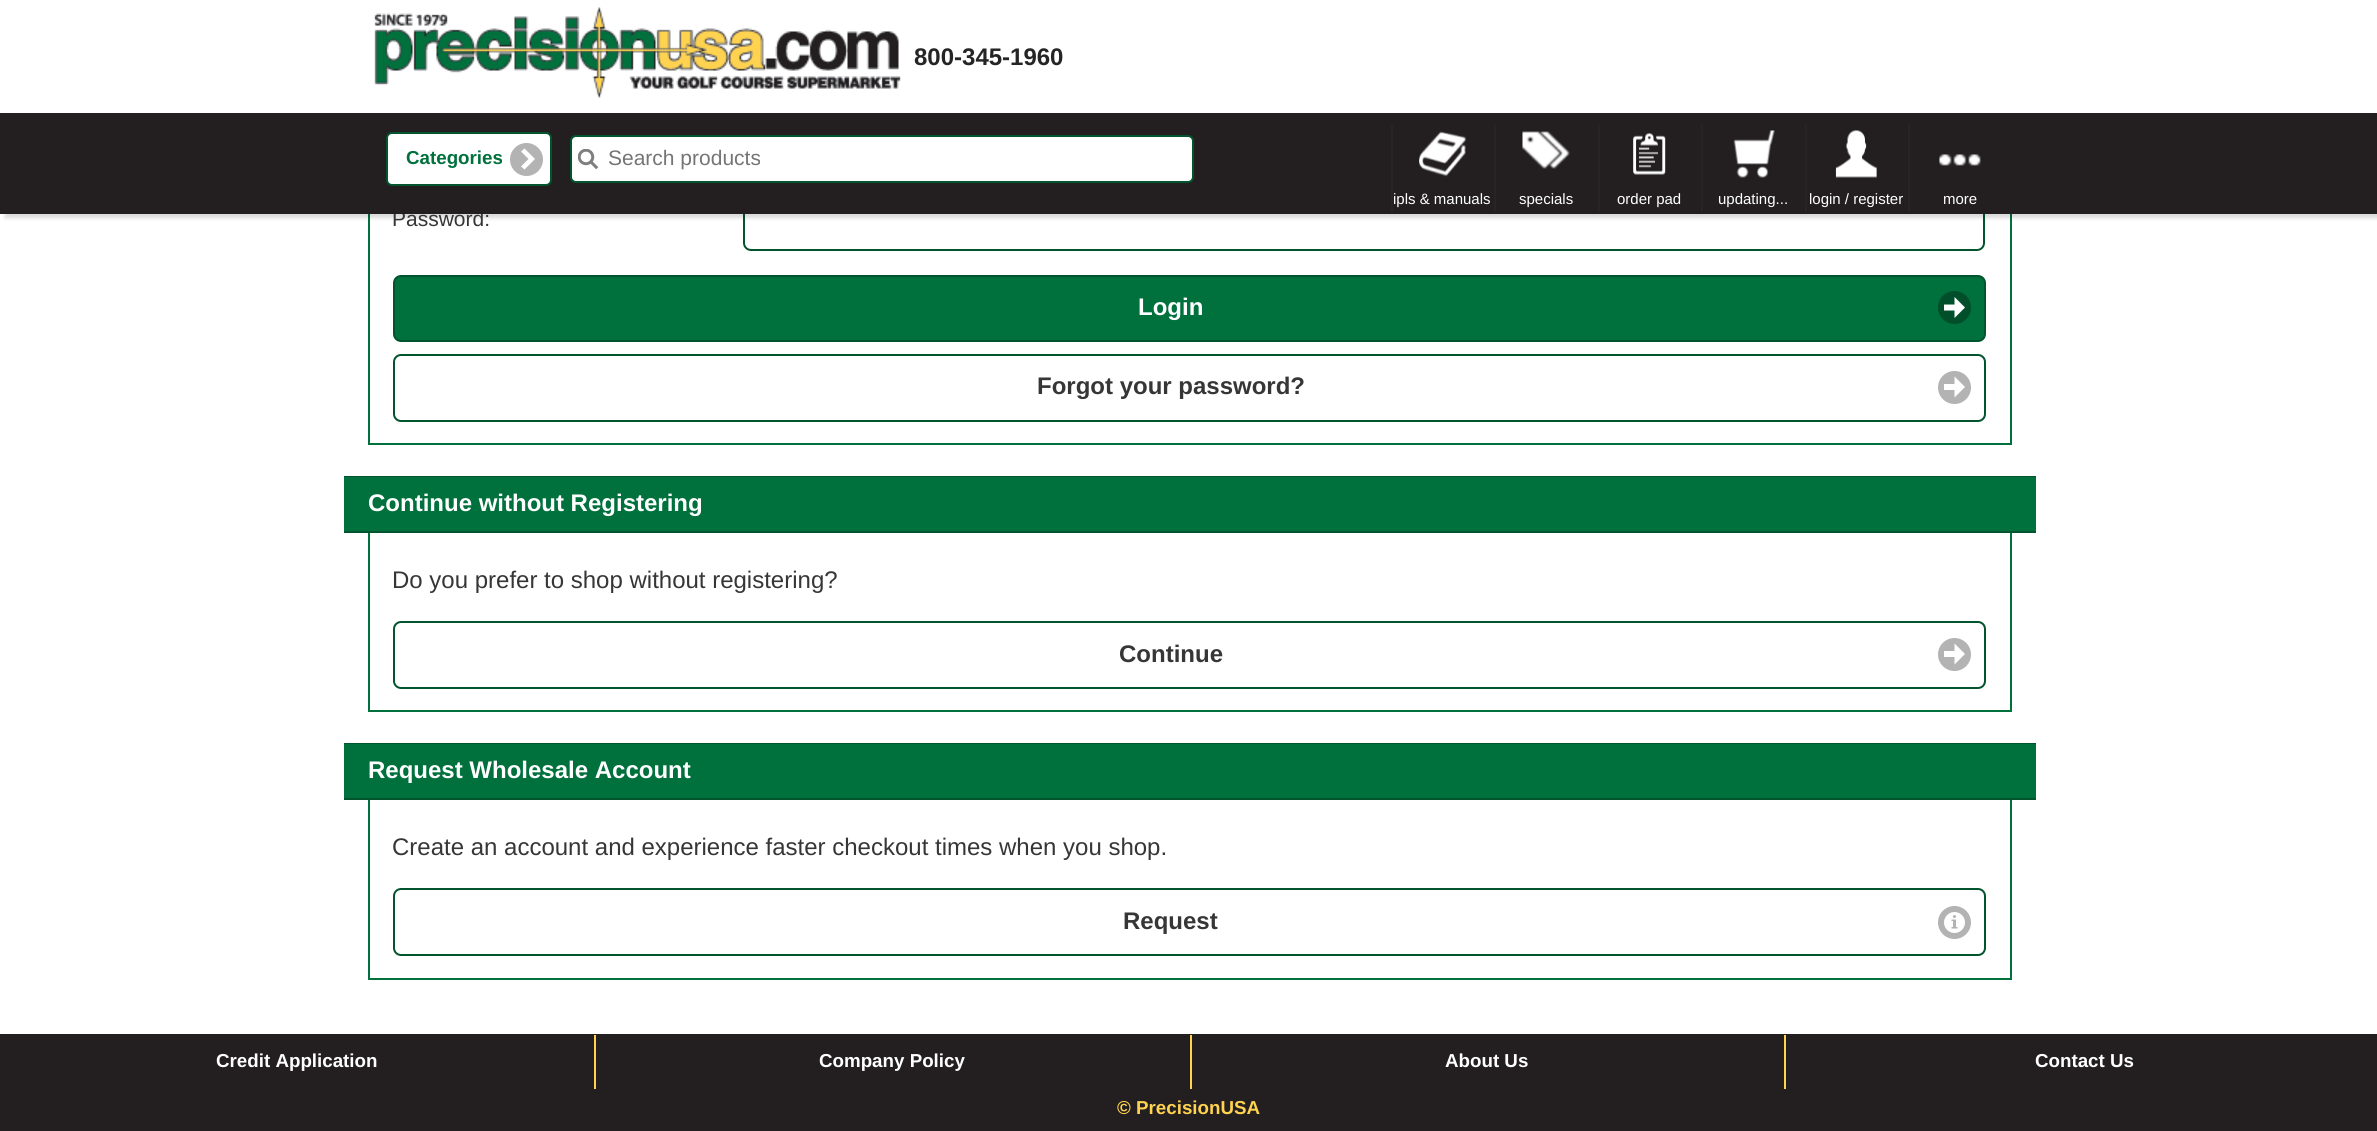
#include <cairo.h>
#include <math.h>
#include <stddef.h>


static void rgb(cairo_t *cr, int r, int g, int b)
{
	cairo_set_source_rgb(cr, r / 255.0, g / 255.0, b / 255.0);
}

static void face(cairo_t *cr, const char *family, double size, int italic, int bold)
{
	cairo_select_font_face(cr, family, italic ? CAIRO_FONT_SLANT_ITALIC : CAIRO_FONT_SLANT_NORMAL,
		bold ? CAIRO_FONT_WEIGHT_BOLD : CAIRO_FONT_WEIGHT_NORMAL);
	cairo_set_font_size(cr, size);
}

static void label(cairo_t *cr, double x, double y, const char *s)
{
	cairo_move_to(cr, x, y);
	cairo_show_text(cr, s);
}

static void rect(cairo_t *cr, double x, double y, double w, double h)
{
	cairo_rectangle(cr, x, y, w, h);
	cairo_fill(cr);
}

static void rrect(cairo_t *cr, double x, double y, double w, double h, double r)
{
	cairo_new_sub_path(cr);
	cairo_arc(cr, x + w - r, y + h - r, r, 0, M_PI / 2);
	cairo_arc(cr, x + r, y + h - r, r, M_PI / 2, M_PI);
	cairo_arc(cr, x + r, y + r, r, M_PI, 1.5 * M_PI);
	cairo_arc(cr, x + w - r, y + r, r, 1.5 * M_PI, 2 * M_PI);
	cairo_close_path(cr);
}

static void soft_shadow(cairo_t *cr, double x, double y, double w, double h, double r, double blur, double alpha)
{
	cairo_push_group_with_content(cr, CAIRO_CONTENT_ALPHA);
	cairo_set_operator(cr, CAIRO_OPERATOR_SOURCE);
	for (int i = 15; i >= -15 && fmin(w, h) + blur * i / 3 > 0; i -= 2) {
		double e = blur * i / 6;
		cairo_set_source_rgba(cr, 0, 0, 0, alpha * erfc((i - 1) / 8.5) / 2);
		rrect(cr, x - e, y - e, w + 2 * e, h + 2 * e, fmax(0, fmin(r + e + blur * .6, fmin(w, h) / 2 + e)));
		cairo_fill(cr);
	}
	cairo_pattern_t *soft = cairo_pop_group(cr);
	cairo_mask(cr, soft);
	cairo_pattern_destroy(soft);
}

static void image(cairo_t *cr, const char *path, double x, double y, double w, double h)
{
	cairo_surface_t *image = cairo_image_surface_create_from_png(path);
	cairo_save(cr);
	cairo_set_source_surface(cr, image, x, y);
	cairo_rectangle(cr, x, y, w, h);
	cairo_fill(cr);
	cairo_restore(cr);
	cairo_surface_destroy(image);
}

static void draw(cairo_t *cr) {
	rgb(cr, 255, 255, 255);
	cairo_paint(cr);
	rgb(cr, 0, 112, 60);
	rect(cr, 2010, 214, 2, 230);
	rect(cr, 368, 443, 1644, 2);
	rect(cr, 368, 214, 2, 230);
	rrect(cr, 744, 195, 1240, 55, 7);
	rgb(cr, 1, 84, 45);
	cairo_stroke(cr);
	rgb(cr, 0, 0, 0);
	soft_shadow(cr, 5, 3, 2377, 215, 0, 2, 0.15);
	face(cr, "Liberation Sans", 21, 0, 0);
	rgb(cr, 54, 54, 54);
	label(cr, 392, 226, "Password:");
	rgb(cr, 35, 31, 32);
	rect(cr, 0, 113, 2377, 101);
	rgb(cr, 255, 255, 255);
	rect(cr, 2, 0, 2375, 113);
	image(cr, "image0.png", 374, 7, 527, 91);
	face(cr, "Liberation Sans", 24, 0, 1);
	rgb(cr, 37, 37, 37);
	label(cr, 914, 65, "800-345-1960");
	rgb(cr, 255, 255, 255);
	rrect(cr, 387, 133, 164, 52, 5);
	cairo_fill_preserve(cr);
	rgb(cr, 1, 84, 45);
	cairo_stroke(cr);
	face(cr, "Liberation Sans", 18.75, 0, 1);
	rgb(cr, 0, 112, 60);
	label(cr, 406, 164, "Categories");
	rgb(cr, 179, 179, 179);
	cairo_new_path(cr);
	cairo_arc(cr, 526.5, 159.5, 16.5, 0, 2 * M_PI);
	cairo_fill(cr);
	rgb(cr, 255, 255, 255);
	cairo_new_path(cr);
	cairo_move_to(cr, 521, 151.5);
	cairo_line_to(cr, 528.5, 159);
	cairo_line_to(cr, 521, 166.5);
	cairo_line_to(cr, 524.5, 169.5);
	cairo_line_to(cr, 535, 159);
	cairo_line_to(cr, 524.5, 148.5);
	cairo_close_path(cr);
	cairo_fill(cr);
	rrect(cr, 571, 136, 622, 46, 5);
	cairo_fill_preserve(cr);
	rgb(cr, 1, 84, 45);
	cairo_stroke(cr);
	image(cr, "image1.png", 578, 149, 21, 21);
	face(cr, "Liberation Sans", 21, 0, 0);
	rgb(cr, 117, 117, 117);
	label(cr, 608, 165, "Search products");
	image(cr, "image2.png", 1419, 131, 47, 46);
	rgb(cr, 37, 37, 37);
	rect(cr, 1391, 125, 2, 87);
	face(cr, "Liberation Sans", 15, 0, 0);
	rgb(cr, 255, 255, 255);
	label(cr, 1393, 204, "ipls & manuals");
	image(cr, "image3.png", 1522, 131, 48, 38);
	rgb(cr, 37, 37, 37);
	rect(cr, 1494, 125, 2, 87);
	rgb(cr, 255, 255, 255);
	label(cr, 1519, 204, "specials");
	image(cr, "image4.png", 1633, 133, 33, 42);
	rgb(cr, 37, 37, 37);
	rect(cr, 1598, 125, 2, 87);
	rgb(cr, 255, 255, 255);
	label(cr, 1617, 204, "order pad");
	image(cr, "image5.png", 1733, 130, 42, 48);
	rgb(cr, 37, 37, 37);
	rect(cr, 1701, 125, 2, 87);
	rgb(cr, 255, 255, 255);
	label(cr, 1718, 204, "updating...");
	image(cr, "image6.png", 1835, 130, 42, 48);
	rgb(cr, 37, 37, 37);
	rect(cr, 1805, 125, 2, 87);
	rgb(cr, 255, 255, 255);
	label(cr, 1809, 204, "login / register");
	image(cr, "image7.png", 1939, 154, 42, 12);
	rgb(cr, 37, 37, 37);
	rect(cr, 1908, 125, 2, 87);
	rgb(cr, 255, 255, 255);
	label(cr, 1943, 204, "more");
	rgb(cr, 0, 112, 60);
	rrect(cr, 394, 276, 1591, 65, 7);
	cairo_fill_preserve(cr);
	rgb(cr, 1, 84, 45);
	cairo_stroke(cr);
	face(cr, "Liberation Sans", 24, 0, 1);
	rgb(cr, 255, 255, 255);
	label(cr, 1138, 315, "Login");
	rgb(cr, 0, 78, 42);
	cairo_new_path(cr);
	cairo_arc(cr, 1954.5, 307.5, 16.5, 0, 2 * M_PI);
	cairo_fill(cr);
	rgb(cr, 255, 255, 255);
	cairo_new_path(cr);
	cairo_move_to(cr, 1965, 307.5);
	cairo_line_to(cr, 1954.5, 297);
	cairo_line_to(cr, 1954.5, 304.5);
	cairo_line_to(cr, 1944, 304.5);
	cairo_line_to(cr, 1944, 310.5);
	cairo_line_to(cr, 1954.5, 310.5);
	cairo_line_to(cr, 1954.5, 318);
	cairo_close_path(cr);
	cairo_fill(cr);
	rrect(cr, 394, 355, 1591, 66, 7);
	rgb(cr, 1, 84, 45);
	cairo_stroke(cr);
	rgb(cr, 54, 54, 54);
	label(cr, 1037, 394, "Forgot your password?");
	rgb(cr, 179, 179, 179);
	cairo_new_path(cr);
	cairo_arc(cr, 1954.5, 387.5, 16.5, 0, 2 * M_PI);
	cairo_fill(cr);
	rgb(cr, 255, 255, 255);
	cairo_new_path(cr);
	cairo_move_to(cr, 1965, 387);
	cairo_line_to(cr, 1954.5, 376.5);
	cairo_line_to(cr, 1954.5, 384);
	cairo_line_to(cr, 1944, 384);
	cairo_line_to(cr, 1944, 390);
	cairo_line_to(cr, 1954.5, 390);
	cairo_line_to(cr, 1954.5, 397.5);
	cairo_close_path(cr);
	cairo_fill(cr);
	rgb(cr, 1, 84, 45);
	rect(cr, 344, 476, 1692, 1);
	rect(cr, 344, 531, 1692, 2);
	rgb(cr, 0, 112, 60);
	rect(cr, 344, 477, 1692, 54);
	rgb(cr, 255, 255, 255);
	label(cr, 368, 511, "Continue without Registering");
	rgb(cr, 0, 112, 60);
	rect(cr, 2010, 533, 2, 178);
	rect(cr, 368, 710, 1644, 2);
	rect(cr, 368, 533, 2, 178);
	face(cr, "Liberation Sans", 24, 0, 0);
	rgb(cr, 54, 54, 54);
	label(cr, 392, 588, "Do you prefer to shop without registering?");
	rrect(cr, 394, 622, 1591, 66, 7);
	rgb(cr, 1, 84, 45);
	cairo_stroke(cr);
	face(cr, "Liberation Sans", 24, 0, 1);
	rgb(cr, 54, 54, 54);
	label(cr, 1119, 662, "Continue");
	rgb(cr, 179, 179, 179);
	cairo_new_path(cr);
	cairo_arc(cr, 1954.5, 654.5, 16.5, 0, 2 * M_PI);
	cairo_fill(cr);
	rgb(cr, 255, 255, 255);
	cairo_new_path(cr);
	cairo_move_to(cr, 1965, 654);
	cairo_line_to(cr, 1954.5, 643.5);
	cairo_line_to(cr, 1954.5, 651);
	cairo_line_to(cr, 1944, 651);
	cairo_line_to(cr, 1944, 657);
	cairo_line_to(cr, 1954.5, 657);
	cairo_line_to(cr, 1954.5, 664.5);
	cairo_close_path(cr);
	cairo_fill(cr);
	rgb(cr, 1, 84, 45);
	rect(cr, 344, 743, 1692, 1);
	rect(cr, 344, 798, 1692, 2);
	rgb(cr, 0, 112, 60);
	rect(cr, 344, 744, 1692, 54);
	rgb(cr, 255, 255, 255);
	label(cr, 368, 778, "Request Wholesale Account");
	rgb(cr, 0, 112, 60);
	rect(cr, 2010, 800, 2, 180);
	rect(cr, 368, 978, 1644, 2);
	rect(cr, 368, 800, 2, 180);
	face(cr, "Liberation Sans", 24, 0, 0);
	rgb(cr, 54, 54, 54);
	label(cr, 392, 855, "Create an account and experience faster checkout times when you shop.");
	rrect(cr, 394, 889, 1591, 66, 7);
	rgb(cr, 1, 84, 45);
	cairo_stroke(cr);
	face(cr, "Liberation Sans", 24, 0, 1);
	rgb(cr, 54, 54, 54);
	label(cr, 1123, 929, "Request");
	rgb(cr, 179, 179, 179);
	cairo_new_path(cr);
	cairo_arc(cr, 1954.5, 922.5, 16.5, 0, 2 * M_PI);
	cairo_fill(cr);
	image(cr, "image8.png", 1944, 912, 21, 21);
	rgb(cr, 35, 31, 32);
	rect(cr, 0, 1034, 2377, 97);
	face(cr, "Liberation Sans", 18.75, 0, 1);
	rgb(cr, 255, 255, 255);
	label(cr, 216, 1067, "Credit Application");
	rgb(cr, 255, 210, 79);
	rect(cr, 594, 1035, 2, 54);
	rgb(cr, 255, 255, 255);
	label(cr, 819, 1067, "Company Policy");
	rgb(cr, 255, 210, 79);
	rect(cr, 1190, 1035, 2, 54);
	rgb(cr, 255, 255, 255);
	label(cr, 1445, 1067, "About Us");
	rgb(cr, 255, 210, 79);
	rect(cr, 1784, 1035, 2, 54);
	rgb(cr, 255, 255, 255);
	label(cr, 2035, 1067, "Contact Us");
	rgb(cr, 255, 210, 79);
	label(cr, 1117, 1114, "© PrecisionUSA");
}

int main(void) {
	cairo_surface_t *surface = cairo_image_surface_create(CAIRO_FORMAT_RGB24, 2377, 1131);
	cairo_t *cr = cairo_create(surface);
	cairo_font_options_t *options = cairo_font_options_create();
	cairo_font_options_set_hint_metrics(options, CAIRO_HINT_METRICS_OFF);
	cairo_font_options_set_hint_style(options, CAIRO_HINT_STYLE_NONE);
	cairo_set_font_options(cr, options);
	cairo_set_miter_limit(cr, 4);
	draw(cr);
	cairo_surface_write_to_png(surface, "render.png");
	cairo_font_options_destroy(options);
	cairo_destroy(cr);
	cairo_surface_destroy(surface);
	return 0;
}
